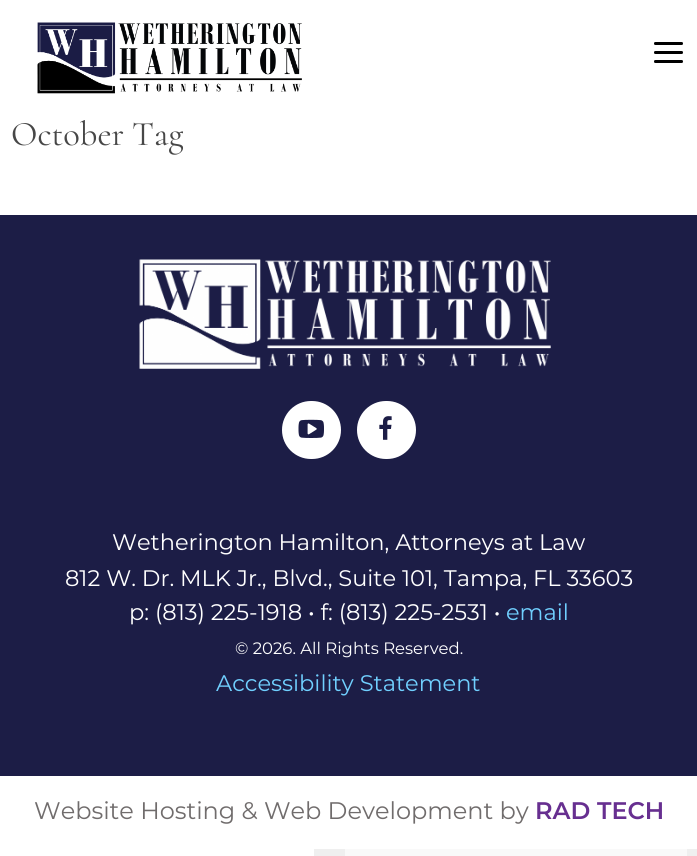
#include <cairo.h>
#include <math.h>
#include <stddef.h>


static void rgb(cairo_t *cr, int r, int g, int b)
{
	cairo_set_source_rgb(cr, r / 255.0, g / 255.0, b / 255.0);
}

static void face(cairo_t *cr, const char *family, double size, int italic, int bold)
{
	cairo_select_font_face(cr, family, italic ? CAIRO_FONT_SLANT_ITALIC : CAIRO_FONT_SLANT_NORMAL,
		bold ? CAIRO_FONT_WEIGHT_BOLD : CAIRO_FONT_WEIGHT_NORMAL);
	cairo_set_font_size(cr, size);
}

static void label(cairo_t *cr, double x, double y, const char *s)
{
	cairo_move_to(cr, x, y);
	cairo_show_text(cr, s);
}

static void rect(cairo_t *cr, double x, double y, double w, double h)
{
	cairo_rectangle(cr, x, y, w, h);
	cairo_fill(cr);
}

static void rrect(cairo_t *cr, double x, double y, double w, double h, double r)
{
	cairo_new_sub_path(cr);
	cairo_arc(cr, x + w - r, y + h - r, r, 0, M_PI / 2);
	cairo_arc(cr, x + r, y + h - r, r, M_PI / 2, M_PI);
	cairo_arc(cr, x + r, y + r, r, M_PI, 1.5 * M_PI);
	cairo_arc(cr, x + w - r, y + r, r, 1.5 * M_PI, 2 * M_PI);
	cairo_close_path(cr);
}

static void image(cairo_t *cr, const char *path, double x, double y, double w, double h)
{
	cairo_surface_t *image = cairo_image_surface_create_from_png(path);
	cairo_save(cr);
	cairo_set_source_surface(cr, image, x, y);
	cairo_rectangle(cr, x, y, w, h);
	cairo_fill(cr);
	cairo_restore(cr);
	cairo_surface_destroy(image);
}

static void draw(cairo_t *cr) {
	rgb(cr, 255, 255, 255);
	cairo_paint(cr);
	image(cr, "image0.png", 37, 22, 265, 72);
	rgb(cr, 0, 0, 0);
	cairo_new_path(cr);
	cairo_move_to(cr, 655.5, 42);
	cairo_line_to(cr, 669, 42);
	cairo_line_to(cr, 669, 45);
	cairo_line_to(cr, 655.5, 45);
	cairo_curve_to(cr, 654.5, 45, 654, 44.5, 654, 43.5);
	cairo_curve_to(cr, 654, 42.5, 654.5, 42, 655.5, 42);
	cairo_close_path(cr);
	cairo_fill(cr);
	cairo_new_path(cr);
	cairo_move_to(cr, 669, 42);
	cairo_line_to(cr, 681.5, 42);
	cairo_curve_to(cr, 682.5, 42, 683, 42.5, 683, 43.5);
	cairo_curve_to(cr, 683, 44.5, 682.5, 45, 681.5, 45);
	cairo_line_to(cr, 669, 45);
	cairo_close_path(cr);
	cairo_fill(cr);
	cairo_new_path(cr);
	cairo_move_to(cr, 655.5, 51);
	cairo_line_to(cr, 669, 51);
	cairo_line_to(cr, 669, 54);
	cairo_line_to(cr, 655.5, 54);
	cairo_curve_to(cr, 654.5, 54, 654, 53.5, 654, 52.5);
	cairo_curve_to(cr, 654, 51.5, 654.5, 51, 655.5, 51);
	cairo_close_path(cr);
	cairo_fill(cr);
	cairo_new_path(cr);
	cairo_move_to(cr, 669, 51);
	cairo_line_to(cr, 681.5, 51);
	cairo_curve_to(cr, 682.5, 51, 683, 51.5, 683, 52.5);
	cairo_curve_to(cr, 683, 53.5, 682.5, 54, 681.5, 54);
	cairo_line_to(cr, 669, 54);
	cairo_close_path(cr);
	cairo_fill(cr);
	cairo_new_path(cr);
	cairo_move_to(cr, 655.5, 60);
	cairo_line_to(cr, 669, 60);
	cairo_line_to(cr, 669, 63);
	cairo_line_to(cr, 655.5, 63);
	cairo_curve_to(cr, 654.5, 63, 654, 62.5, 654, 61.5);
	cairo_curve_to(cr, 654, 60.5, 654.5, 60, 655.5, 60);
	cairo_close_path(cr);
	cairo_fill(cr);
	cairo_new_path(cr);
	cairo_move_to(cr, 669, 60);
	cairo_line_to(cr, 681.5, 60);
	cairo_curve_to(cr, 682.5, 60, 683, 60.5, 683, 61.5);
	cairo_curve_to(cr, 683, 62.5, 682.5, 63, 681.5, 63);
	cairo_line_to(cr, 669, 63);
	cairo_close_path(cr);
	cairo_fill(cr);
	face(cr, "Cormorant", 34.5, 0, 0);
	rgb(cr, 71, 71, 71);
	label(cr, 11, 145, "October Tag");
	rgb(cr, 28, 29, 70);
	rect(cr, 0, 215, 697, 561);
	image(cr, "image1.png", 139, 259, 412, 110);
	rgb(cr, 255, 255, 255);
	rrect(cr, 282, 401, 59, 58, 29);
	cairo_fill(cr);
	image(cr, "image2.png", 298, 419, 26, 19);
	rrect(cr, 357, 401, 59, 58, 29);
	cairo_fill(cr);
	image(cr, "image3.png", 379, 416, 13, 24);
	face(cr, "Montserrat", 22.5, 0, 0);
	label(cr, 112, 550, "Wetherington Hamilton, Attorneys at Law");
	label(cr, 65, 586, "812 W. Dr. MLK Jr., Blvd., Suite 101, Tampa, FL 33603");
	label(cr, 129, 620, "p: (813) 225-1918 • f: (813) 225-2531 •");
	rgb(cr, 112, 208, 255);
	label(cr, 506, 620, "email");
	face(cr, "Montserrat", 16.5, 0, 0);
	rgb(cr, 255, 255, 255);
	label(cr, 235, 654, "© 2026. All Rights Reserved.");
	face(cr, "Montserrat", 22.5, 0, 0);
	rgb(cr, 112, 208, 255);
	label(cr, 216, 691, "Accessibility Statement");
	face(cr, "Montserrat", 24, 0, 0);
	rgb(cr, 112, 108, 108);
	label(cr, 34, 819, "Website Hosting & Web Development by");
	face(cr, "Montserrat SemiBold", 24, 0, 0);
	rgb(cr, 103, 47, 144);
	label(cr, 535, 819, "RAD TECH");
	rgb(cr, 239, 239, 239);
	rect(cr, 314, 849, 383, 7);
	rgb(cr, 249, 249, 249);
	rect(cr, 345, 849, 342, 7);
}

int main(void) {
	cairo_surface_t *surface = cairo_image_surface_create(CAIRO_FORMAT_RGB24, 697, 856);
	cairo_t *cr = cairo_create(surface);
	cairo_font_options_t *options = cairo_font_options_create();
	cairo_font_options_set_hint_metrics(options, CAIRO_HINT_METRICS_OFF);
	cairo_font_options_set_hint_style(options, CAIRO_HINT_STYLE_NONE);
	cairo_set_font_options(cr, options);
	cairo_set_miter_limit(cr, 4);
	draw(cr);
	cairo_surface_write_to_png(surface, "render.png");
	cairo_font_options_destroy(options);
	cairo_destroy(cr);
	cairo_surface_destroy(surface);
	return 0;
}
